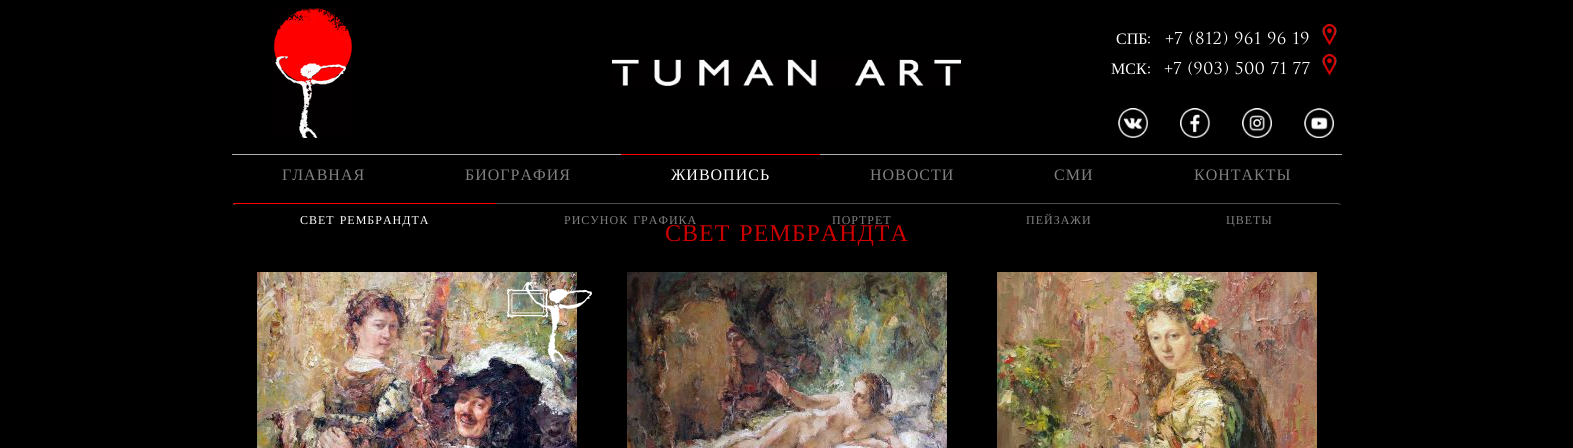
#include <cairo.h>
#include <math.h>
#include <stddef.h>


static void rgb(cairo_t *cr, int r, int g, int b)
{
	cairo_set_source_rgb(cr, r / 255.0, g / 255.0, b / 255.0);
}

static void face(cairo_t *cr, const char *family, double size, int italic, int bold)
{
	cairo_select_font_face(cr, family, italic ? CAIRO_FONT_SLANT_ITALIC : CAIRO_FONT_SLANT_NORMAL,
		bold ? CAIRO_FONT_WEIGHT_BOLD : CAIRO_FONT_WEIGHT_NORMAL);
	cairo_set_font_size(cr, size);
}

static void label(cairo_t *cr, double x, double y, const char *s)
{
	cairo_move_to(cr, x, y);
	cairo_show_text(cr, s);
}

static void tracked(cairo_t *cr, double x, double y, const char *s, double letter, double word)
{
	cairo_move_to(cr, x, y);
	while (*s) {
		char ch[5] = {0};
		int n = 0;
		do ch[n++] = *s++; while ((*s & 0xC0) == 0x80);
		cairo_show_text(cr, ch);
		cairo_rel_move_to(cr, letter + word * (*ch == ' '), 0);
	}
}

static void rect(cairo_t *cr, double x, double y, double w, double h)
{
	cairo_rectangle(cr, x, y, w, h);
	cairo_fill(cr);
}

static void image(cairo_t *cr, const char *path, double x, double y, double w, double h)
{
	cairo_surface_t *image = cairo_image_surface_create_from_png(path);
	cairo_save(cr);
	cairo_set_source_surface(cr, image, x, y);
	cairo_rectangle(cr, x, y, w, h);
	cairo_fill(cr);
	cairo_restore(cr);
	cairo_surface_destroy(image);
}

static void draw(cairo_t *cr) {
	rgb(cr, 0, 0, 0);
	cairo_paint(cr);
	image(cr, "image0.png", 272, 8, 80, 130);
	image(cr, "image1.png", 612, 59, 349, 30);
	face(cr, "Liberation Serif", 16, 0, 0);
	rgb(cr, 255, 255, 255);
	label(cr, 1116, 44, "СПБ");
	face(cr, "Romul", 16, 0, 0);
	label(cr, 1147, 44, ":");
	face(cr, "Liberation Serif", 16, 0, 0);
	tracked(cr, 1165, 44, "+", 0.3, 0);
	face(cr, "Romul", 16, 0, 0);
	tracked(cr, 1174, 44, "7 (812) 961 96 19", 0.3, 0);
	image(cr, "image2.png", 1322, 23, 15, 23);
	face(cr, "Liberation Serif", 16, 0, 0);
	label(cr, 1111, 74, "МСК");
	face(cr, "Romul", 16, 0, 0);
	label(cr, 1147, 74, ":");
	face(cr, "Liberation Serif", 16, 0, 0);
	tracked(cr, 1164, 74, "+", 0.2, 0);
	face(cr, "Romul", 16, 0, 0);
	tracked(cr, 1173, 74, "7 (903) 500 71 77", 0.2, 0);
	image(cr, "image2.png", 1322, 53, 15, 23);
	image(cr, "image3.png", 1118, 108, 30, 30);
	image(cr, "image4.png", 1180, 108, 30, 30);
	image(cr, "image5.png", 1242, 108, 30, 30);
	image(cr, "image6.png", 1304, 108, 30, 30);
	rgb(cr, 176, 176, 176);
	rect(cr, 232, 154, 1110, 1);
	face(cr, "Liberation Serif", 16, 0, 0);
	rgb(cr, 128, 128, 128);
	tracked(cr, 282, 180, "ГЛАВНАЯ", 1, 0);
	rgb(cr, 254, 0, 0);
	rect(cr, 621, 154, 199, 1);
	rgb(cr, 255, 255, 255);
	tracked(cr, 671, 180, "ЖИВОПИСЬ", 1, 0);
	cairo_new_path(cr);
	cairo_move_to(cr, 233.5, 204.5);
	cairo_line_to(cr, 236, 203.5);
	cairo_line_to(cr, 1338, 203.5);
	cairo_line_to(cr, 1340.5, 204.5);
	rgb(cr, 79, 79, 79);
	cairo_set_line_width(cr, 1);
	cairo_stroke(cr);
	face(cr, "Liberation Serif", 24, 0, 0);
	rgb(cr, 204, 0, 0);
	tracked(cr, 665, 241, "СВЕТ РЕМБРАНДТА", 1, 2);
	cairo_new_path(cr);
	cairo_move_to(cr, 1340.5, 204.5);
	cairo_curve_to(cr, 1342.5, 206.5, 1341.5, 229.5, 1341.5, 234);
	cairo_curve_to(cr, 1341.5, 236, 1340, 237.5, 1338, 237.5);
	cairo_line_to(cr, 236, 237.5);
	cairo_curve_to(cr, 234, 237.5, 232.5, 236, 232.5, 234);
	cairo_curve_to(cr, 232.5, 229.5, 231.5, 206.5, 233.5, 204.5);
	cairo_set_source_rgba(cr, 0, 0, 0, 0.15);
	cairo_stroke(cr);
	rgb(cr, 254, 0, 0);
	rect(cr, 233, 203, 263, 1);
	face(cr, "Liberation Serif", 12, 0, 0);
	rgb(cr, 255, 255, 255);
	tracked(cr, 300, 224, "СВЕТ РЕМБРАНДТА", 1, 1);
	rgb(cr, 128, 128, 128);
	tracked(cr, 564, 224, "РИСУНОК ГРАФИКА", 1, 1);
	tracked(cr, 832, 224, "ПОРТРЕТ", 1, 0);
	tracked(cr, 1026, 224, "ПЕЙЗАЖИ", 1, 0);
	tracked(cr, 1226, 224, "ЦВЕТЫ", 1, 0);
	face(cr, "Liberation Serif", 16, 0, 0);
	tracked(cr, 465, 180, "БИОГРАФИЯ", 1, 0);
	tracked(cr, 870, 180, "НОВОСТИ", 1, 0);
	tracked(cr, 1054, 180, "СМИ", 1, 0);
	tracked(cr, 1194, 180, "КОНТАКТЫ", 1, 0);
	image(cr, "image7.png", 257, 272, 320, 176);
	image(cr, "image8.png", 507, 282, 85, 80);
	image(cr, "image9.png", 627, 272, 320, 176);
	image(cr, "image10.png", 997, 272, 320, 176);
}

int main(void) {
	cairo_surface_t *surface = cairo_image_surface_create(CAIRO_FORMAT_RGB24, 1573, 448);
	cairo_t *cr = cairo_create(surface);
	cairo_font_options_t *options = cairo_font_options_create();
	cairo_font_options_set_hint_metrics(options, CAIRO_HINT_METRICS_OFF);
	cairo_font_options_set_hint_style(options, CAIRO_HINT_STYLE_NONE);
	cairo_set_font_options(cr, options);
	cairo_set_miter_limit(cr, 4);
	draw(cr);
	cairo_surface_write_to_png(surface, "render.png");
	cairo_font_options_destroy(options);
	cairo_destroy(cr);
	cairo_surface_destroy(surface);
	return 0;
}
